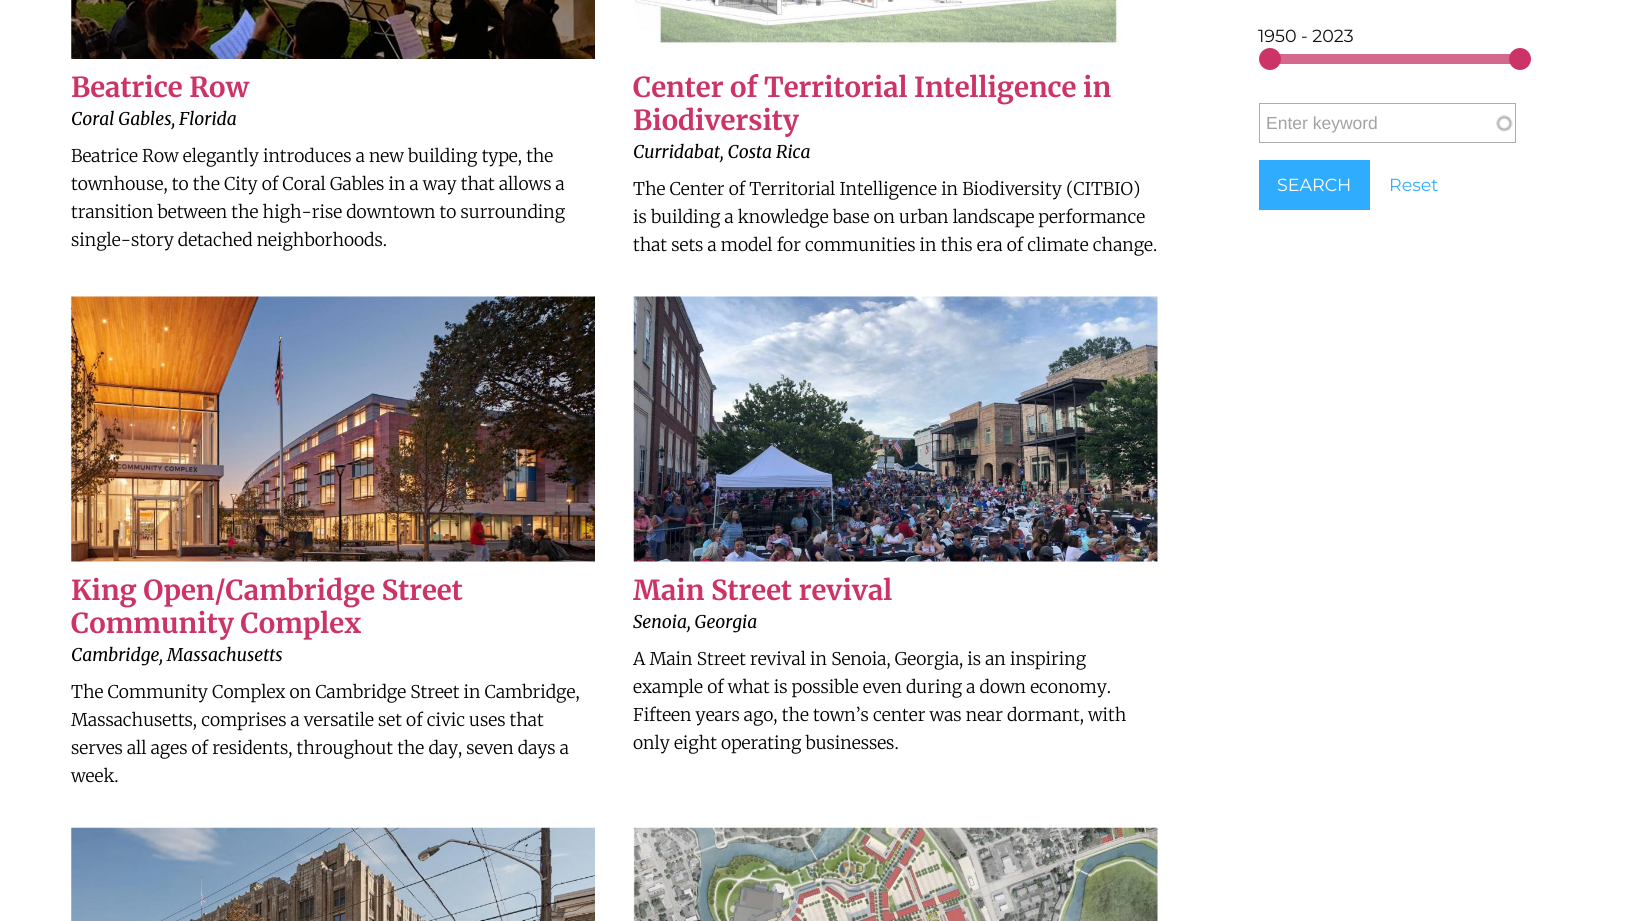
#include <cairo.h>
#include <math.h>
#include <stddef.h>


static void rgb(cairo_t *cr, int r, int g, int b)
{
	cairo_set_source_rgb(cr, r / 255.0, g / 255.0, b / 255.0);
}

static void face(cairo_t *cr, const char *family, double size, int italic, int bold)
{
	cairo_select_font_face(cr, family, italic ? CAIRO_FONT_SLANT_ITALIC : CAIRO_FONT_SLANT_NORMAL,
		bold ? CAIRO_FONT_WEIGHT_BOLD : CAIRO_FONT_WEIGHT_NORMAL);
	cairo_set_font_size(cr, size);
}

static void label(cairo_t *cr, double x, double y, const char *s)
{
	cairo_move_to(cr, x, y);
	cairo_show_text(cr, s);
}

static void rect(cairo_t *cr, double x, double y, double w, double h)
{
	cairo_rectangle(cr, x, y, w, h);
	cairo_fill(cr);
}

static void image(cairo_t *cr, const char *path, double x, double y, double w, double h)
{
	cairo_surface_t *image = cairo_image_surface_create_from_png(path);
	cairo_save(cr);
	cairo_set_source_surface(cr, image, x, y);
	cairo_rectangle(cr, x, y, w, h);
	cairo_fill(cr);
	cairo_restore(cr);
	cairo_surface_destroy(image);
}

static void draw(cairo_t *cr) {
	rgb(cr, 255, 255, 255);
	cairo_paint(cr);
	image(cr, "image0.png", 71, 0, 524, 59);
	face(cr, "Merriweather", 27.5, 0, 1);
	rgb(cr, 204, 52, 103);
	label(cr, 71, 97, "Beatrice Row");
	face(cr, "Merriweather", 17.5, 1, 0);
	rgb(cr, 0, 0, 0);
	label(cr, 71, 125, "Coral Gables, Florida");
	face(cr, "Merriweather Light", 17.5, 0, 0);
	label(cr, 71, 162, "Beatrice Row elegantly introduces a new building type, the");
	label(cr, 71, 190, "townhouse, to the City of Coral Gables in a way that allows a");
	label(cr, 71, 218, "transition between the high-rise downtown to surrounding");
	label(cr, 71, 246, "single-story detached neighborhoods.");
	image(cr, "image1.png", 634, 0, 489, 48);
	face(cr, "Merriweather", 27.5, 0, 1);
	rgb(cr, 204, 52, 103);
	label(cr, 633, 97, "Center of Territorial Intelligence in");
	label(cr, 633, 130, "Biodiversity");
	face(cr, "Merriweather", 17.5, 1, 0);
	rgb(cr, 0, 0, 0);
	label(cr, 633, 158, "Curridabat, Costa Rica");
	face(cr, "Merriweather Light", 17.5, 0, 0);
	label(cr, 633, 195, "The Center of Territorial Intelligence in Biodiversity (CITBIO)");
	label(cr, 633, 223, "is building a knowledge base on urban landscape performance");
	label(cr, 633, 251, "that sets a model for communities in this era of climate change.");
	image(cr, "image2.png", 71, 296, 524, 266);
	face(cr, "Merriweather", 27.5, 0, 1);
	rgb(cr, 204, 52, 103);
	label(cr, 71, 600, "King Open/Cambridge Street");
	label(cr, 71, 633, "Community Complex");
	face(cr, "Merriweather", 17.5, 1, 0);
	rgb(cr, 0, 0, 0);
	label(cr, 71, 661, "Cambridge, Massachusetts");
	face(cr, "Merriweather Light", 17.5, 0, 0);
	label(cr, 71, 698, "The Community Complex on Cambridge Street in Cambridge,");
	label(cr, 71, 726, "Massachusetts, comprises a versatile set of civic uses that");
	label(cr, 71, 754, "serves all ages of residents, throughout the day, seven days a");
	label(cr, 71, 782, "week.");
	image(cr, "image3.png", 633, 296, 525, 266);
	face(cr, "Merriweather", 27.5, 0, 1);
	rgb(cr, 204, 52, 103);
	label(cr, 633, 600, "Main Street revival");
	face(cr, "Merriweather", 17.5, 1, 0);
	rgb(cr, 0, 0, 0);
	label(cr, 633, 628, "Senoia, Georgia");
	face(cr, "Merriweather Light", 17.5, 0, 0);
	label(cr, 633, 665, "A Main Street revival in Senoia, Georgia, is an inspiring");
	label(cr, 633, 693, "example of what is possible even during a down economy.");
	label(cr, 633, 721, "Fifteen years ago, the town’s center was near dormant, with");
	label(cr, 633, 749, "only eight operating businesses.");
	image(cr, "image4.png", 71, 827, 524, 94);
	image(cr, "image5.png", 633, 827, 525, 94);
	face(cr, "Montserrat", 17.5, 0, 0);
	rgb(cr, 17, 17, 17);
	label(cr, 1258, 42, "1950 - 2023");
	rgb(cr, 212, 105, 141);
	rect(cr, 1279, 54, 232, 10);
	rgb(cr, 204, 52, 103);
	cairo_new_path(cr);
	cairo_arc(cr, 1270, 59, 11, 0, 2 * M_PI);
	cairo_fill(cr);
	cairo_arc(cr, 1520, 59, 11, 0, 2 * M_PI);
	cairo_fill(cr);
	image(cr, "image6.png", 1496, 115, 17, 17);
	cairo_rectangle(cr, 1259.5, 103.5, 256, 39);
	rgb(cr, 173, 173, 173);
	cairo_set_line_width(cr, 1);
	cairo_stroke(cr);
	face(cr, "Liberation Sans", 17.5, 0, 0);
	rgb(cr, 162, 162, 162);
	label(cr, 1266, 129, "Enter keyword");
	rgb(cr, 48, 172, 255);
	rect(cr, 1259, 160, 111, 50);
	face(cr, "Montserrat", 17.5, 0, 0);
	rgb(cr, 255, 255, 255);
	label(cr, 1277, 191, "SEARCH");
	rgb(cr, 50, 173, 253);
	label(cr, 1389, 191, "Reset");
}

int main(void) {
	cairo_surface_t *surface = cairo_image_surface_create(CAIRO_FORMAT_RGB24, 1628, 921);
	cairo_t *cr = cairo_create(surface);
	cairo_font_options_t *options = cairo_font_options_create();
	cairo_font_options_set_hint_metrics(options, CAIRO_HINT_METRICS_OFF);
	cairo_font_options_set_hint_style(options, CAIRO_HINT_STYLE_NONE);
	cairo_set_font_options(cr, options);
	cairo_set_miter_limit(cr, 4);
	draw(cr);
	cairo_surface_write_to_png(surface, "render.png");
	cairo_font_options_destroy(options);
	cairo_destroy(cr);
	cairo_surface_destroy(surface);
	return 0;
}
